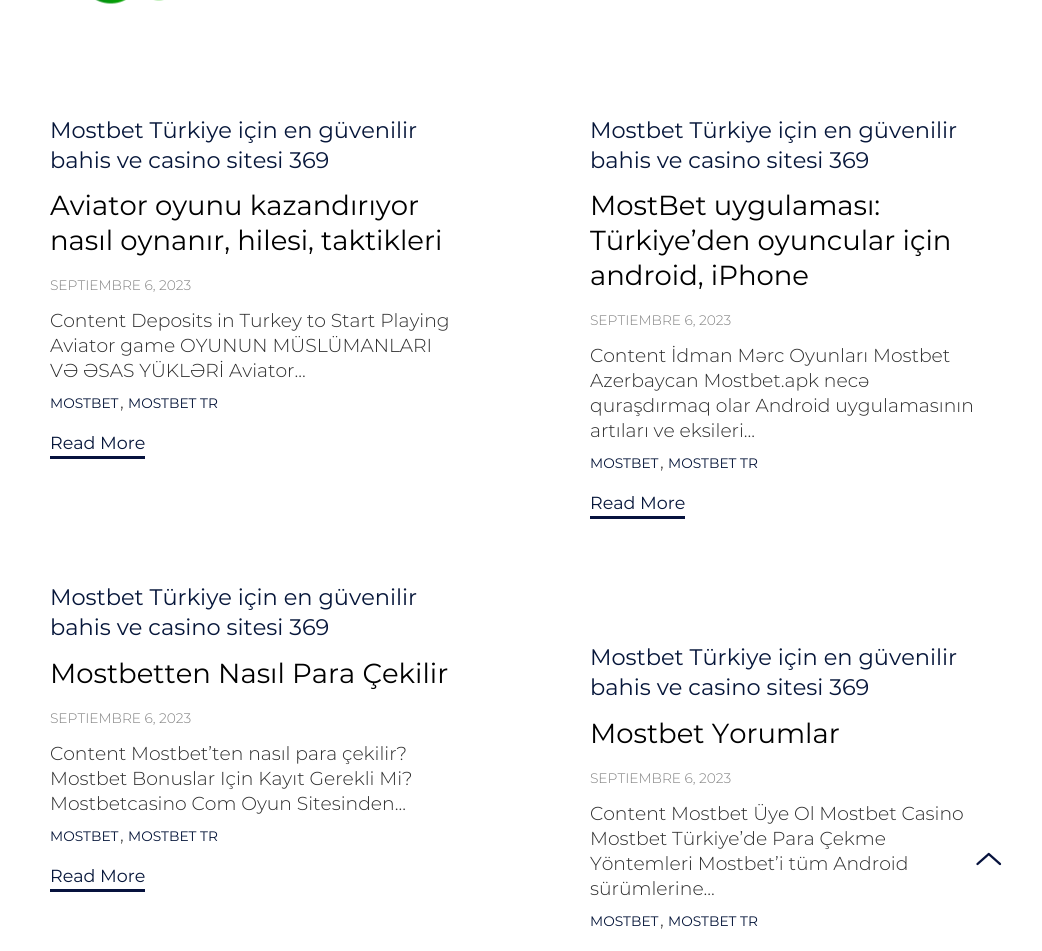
#include <cairo.h>
#include <math.h>
#include <stddef.h>


static void rgb(cairo_t *cr, int r, int g, int b)
{
	cairo_set_source_rgb(cr, r / 255.0, g / 255.0, b / 255.0);
}

static void face(cairo_t *cr, const char *family, double size, int italic, int bold)
{
	cairo_select_font_face(cr, family, italic ? CAIRO_FONT_SLANT_ITALIC : CAIRO_FONT_SLANT_NORMAL,
		bold ? CAIRO_FONT_WEIGHT_BOLD : CAIRO_FONT_WEIGHT_NORMAL);
	cairo_set_font_size(cr, size);
}

static void label(cairo_t *cr, double x, double y, const char *s)
{
	cairo_move_to(cr, x, y);
	cairo_show_text(cr, s);
}

static void rect(cairo_t *cr, double x, double y, double w, double h)
{
	cairo_rectangle(cr, x, y, w, h);
	cairo_fill(cr);
}

static void image(cairo_t *cr, const char *path, double x, double y, double w, double h)
{
	cairo_surface_t *image = cairo_image_surface_create_from_png(path);
	cairo_save(cr);
	cairo_set_source_surface(cr, image, x, y);
	cairo_rectangle(cr, x, y, w, h);
	cairo_fill(cr);
	cairo_restore(cr);
	cairo_surface_destroy(image);
}

static void draw(cairo_t *cr) {
	rgb(cr, 255, 255, 255);
	cairo_paint(cr);
	image(cr, "image0.png", 95, 0, 69, 4);
	face(cr, "Montserrat", 22.5, 0, 0);
	rgb(cr, 6, 22, 58);
	label(cr, 50, 138, "Mostbet Türkiye için en güvenilir");
	label(cr, 50, 168, "bahis ve casino sitesi 369");
	face(cr, "Montserrat", 27.5, 0, 0);
	rgb(cr, 0, 0, 0);
	label(cr, 50, 215, "Aviator oyunu kazandırıyor");
	label(cr, 50, 250, "nasıl oynanır, hilesi, taktikleri");
	face(cr, "Montserrat Light", 13.75, 0, 0);
	rgb(cr, 128, 128, 128);
	label(cr, 50, 290, "SEPTIEMBRE 6, 2023");
	face(cr, "Montserrat Light", 18.75, 0, 0);
	rgb(cr, 44, 44, 44);
	label(cr, 50, 327, "Content Deposits in Turkey to Start Playing");
	label(cr, 50, 352, "Aviator game OYUNUN MÜSLÜMANLARI");
	label(cr, 50, 377, "VƏ ƏSAS YÜKLƏRİ Aviator...");
	face(cr, "Montserrat", 13.75, 0, 0);
	rgb(cr, 6, 22, 58);
	label(cr, 50, 408, "MOSTBET");
	face(cr, "Montserrat Light", 18.75, 0, 0);
	rgb(cr, 44, 44, 44);
	label(cr, 120, 408, ",");
	face(cr, "Montserrat", 13.75, 0, 0);
	rgb(cr, 6, 22, 58);
	label(cr, 128, 408, "MOSTBET TR");
	rgb(cr, 6, 18, 61);
	rect(cr, 50, 456, 95, 3);
	face(cr, "Montserrat", 17.5, 0, 0);
	rgb(cr, 6, 22, 58);
	label(cr, 50, 449, "Read More");
	face(cr, "Montserrat", 22.5, 0, 0);
	label(cr, 590, 138, "Mostbet Türkiye için en güvenilir");
	label(cr, 590, 168, "bahis ve casino sitesi 369");
	face(cr, "Montserrat", 27.5, 0, 0);
	rgb(cr, 0, 0, 0);
	label(cr, 590, 215, "MostBet uygulaması:");
	label(cr, 590, 250, "Türkiye’den oyuncular için");
	label(cr, 590, 285, "android, iPhone");
	face(cr, "Montserrat Light", 13.75, 0, 0);
	rgb(cr, 128, 128, 128);
	label(cr, 590, 325, "SEPTIEMBRE 6, 2023");
	face(cr, "Montserrat Light", 18.75, 0, 0);
	rgb(cr, 44, 44, 44);
	label(cr, 590, 362, "Content İdman Mərc Oyunları Mostbet");
	label(cr, 590, 387, "Azerbaycan Mostbet.apk necə");
	label(cr, 590, 412, "quraşdırmaq olar Android uygulamasının");
	label(cr, 590, 437, "artıları ve eksileri...");
	face(cr, "Montserrat", 13.75, 0, 0);
	rgb(cr, 6, 22, 58);
	label(cr, 590, 468, "MOSTBET");
	face(cr, "Montserrat Light", 18.75, 0, 0);
	rgb(cr, 44, 44, 44);
	label(cr, 660, 468, ",");
	face(cr, "Montserrat", 13.75, 0, 0);
	rgb(cr, 6, 22, 58);
	label(cr, 668, 468, "MOSTBET TR");
	rgb(cr, 6, 18, 61);
	rect(cr, 590, 516, 95, 3);
	face(cr, "Montserrat", 17.5, 0, 0);
	rgb(cr, 6, 22, 58);
	label(cr, 590, 509, "Read More");
	face(cr, "Montserrat", 22.5, 0, 0);
	label(cr, 50, 605, "Mostbet Türkiye için en güvenilir");
	label(cr, 50, 635, "bahis ve casino sitesi 369");
	face(cr, "Montserrat", 27.5, 0, 0);
	rgb(cr, 0, 0, 0);
	label(cr, 50, 683, "Mostbetten Nasıl Para Çekilir");
	face(cr, "Montserrat Light", 13.75, 0, 0);
	rgb(cr, 128, 128, 128);
	label(cr, 50, 723, "SEPTIEMBRE 6, 2023");
	face(cr, "Montserrat Light", 18.75, 0, 0);
	rgb(cr, 44, 44, 44);
	label(cr, 50, 760, "Content Mostbet’ten nasıl para çekilir?");
	label(cr, 50, 785, "Mostbet Bonuslar Için Kayıt Gerekli Mi?");
	label(cr, 50, 810, "Mostbetcasino Com Oyun Sitesinden...");
	face(cr, "Montserrat", 13.75, 0, 0);
	rgb(cr, 6, 22, 58);
	label(cr, 50, 841, "MOSTBET");
	face(cr, "Montserrat Light", 18.75, 0, 0);
	rgb(cr, 44, 44, 44);
	label(cr, 120, 841, ",");
	face(cr, "Montserrat", 13.75, 0, 0);
	rgb(cr, 6, 22, 58);
	label(cr, 128, 841, "MOSTBET TR");
	rgb(cr, 6, 18, 61);
	rect(cr, 50, 889, 95, 3);
	face(cr, "Montserrat", 17.5, 0, 0);
	rgb(cr, 6, 22, 58);
	label(cr, 50, 882, "Read More");
	face(cr, "Montserrat", 22.5, 0, 0);
	label(cr, 590, 665, "Mostbet Türkiye için en güvenilir");
	label(cr, 590, 695, "bahis ve casino sitesi 369");
	face(cr, "Montserrat", 27.5, 0, 0);
	rgb(cr, 0, 0, 0);
	label(cr, 590, 743, "Mostbet Yorumlar");
	face(cr, "Montserrat Light", 13.75, 0, 0);
	rgb(cr, 128, 128, 128);
	label(cr, 590, 783, "SEPTIEMBRE 6, 2023");
	face(cr, "Montserrat Light", 18.75, 0, 0);
	rgb(cr, 44, 44, 44);
	label(cr, 590, 820, "Content Mostbet Üye Ol Mostbet Casino");
	label(cr, 590, 845, "Mostbet Türkiye’de Para Çekme");
	label(cr, 590, 870, "Yöntemleri Mostbet’i tüm Android");
	label(cr, 590, 895, "sürümlerine...");
	face(cr, "Montserrat", 13.75, 0, 0);
	rgb(cr, 6, 22, 58);
	label(cr, 590, 926, "MOSTBET");
	face(cr, "Montserrat Light", 18.75, 0, 0);
	rgb(cr, 44, 44, 44);
	label(cr, 660, 926, ",");
	face(cr, "Montserrat", 13.75, 0, 0);
	rgb(cr, 6, 22, 58);
	label(cr, 668, 926, "MOSTBET TR");
	image(cr, "image1.png", 976, 852, 26, 14);
}

int main(void) {
	cairo_surface_t *surface = cairo_image_surface_create(CAIRO_FORMAT_RGB24, 1042, 951);
	cairo_t *cr = cairo_create(surface);
	cairo_font_options_t *options = cairo_font_options_create();
	cairo_font_options_set_hint_metrics(options, CAIRO_HINT_METRICS_OFF);
	cairo_font_options_set_hint_style(options, CAIRO_HINT_STYLE_NONE);
	cairo_set_font_options(cr, options);
	cairo_set_miter_limit(cr, 4);
	draw(cr);
	cairo_surface_write_to_png(surface, "render.png");
	cairo_font_options_destroy(options);
	cairo_destroy(cr);
	cairo_surface_destroy(surface);
	return 0;
}
